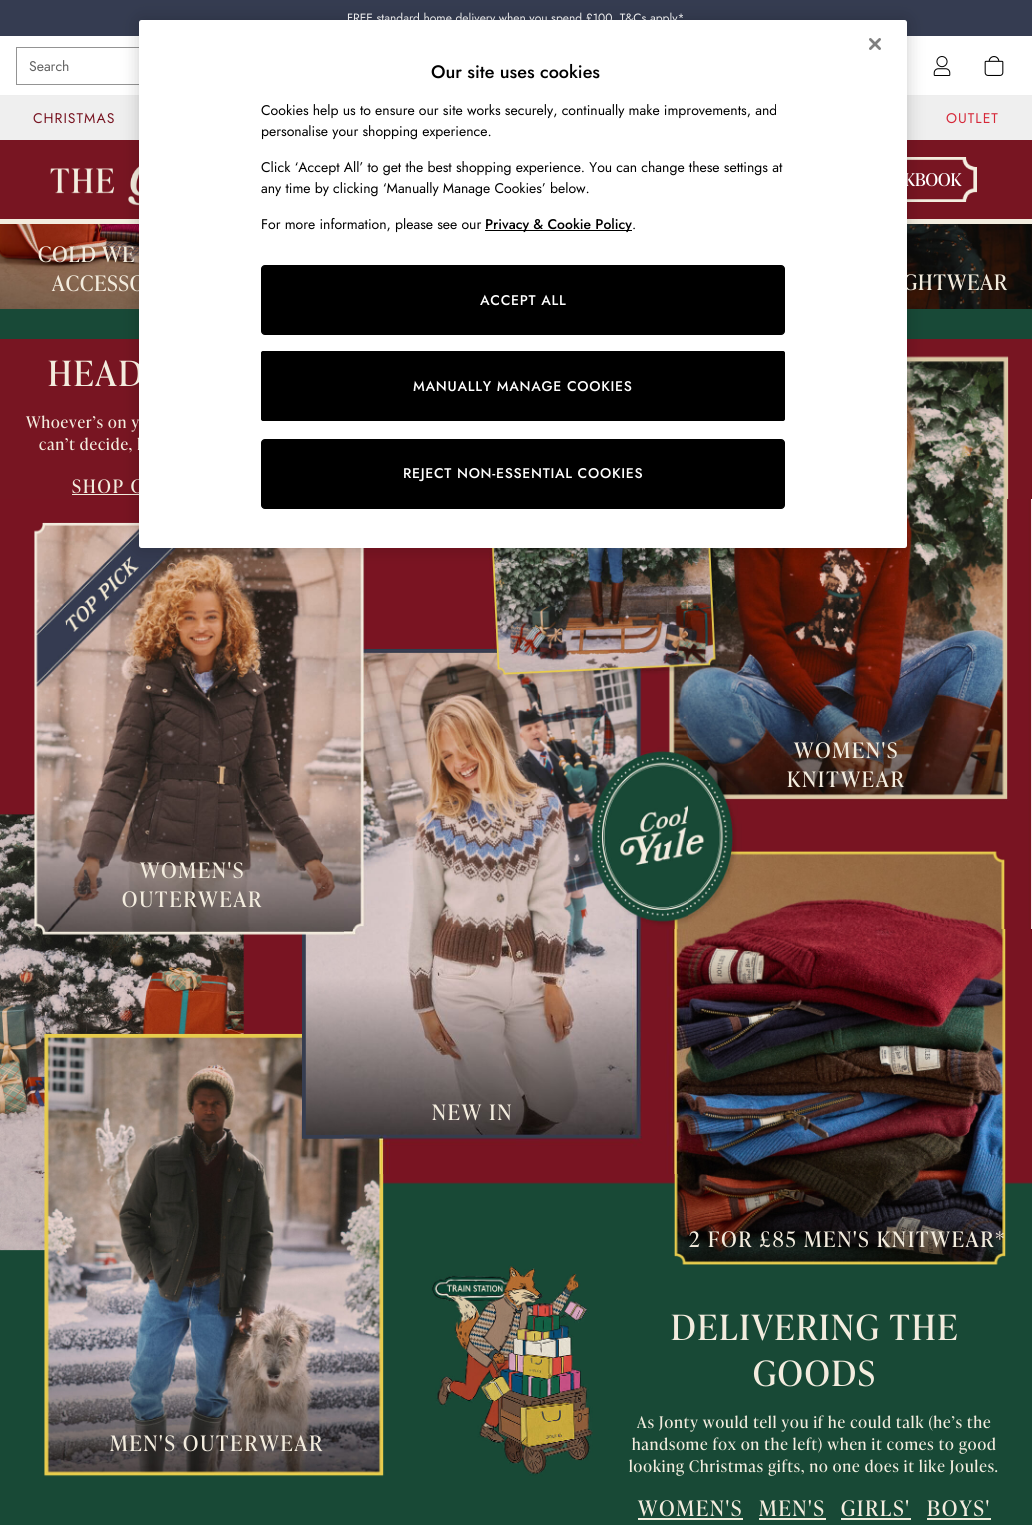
#include <cairo.h>
#include <math.h>
#include <stddef.h>


static void rgb(cairo_t *cr, int r, int g, int b)
{
	cairo_set_source_rgb(cr, r / 255.0, g / 255.0, b / 255.0);
}

static void face(cairo_t *cr, const char *family, double size, int italic, int bold)
{
	cairo_select_font_face(cr, family, italic ? CAIRO_FONT_SLANT_ITALIC : CAIRO_FONT_SLANT_NORMAL,
		bold ? CAIRO_FONT_WEIGHT_BOLD : CAIRO_FONT_WEIGHT_NORMAL);
	cairo_set_font_size(cr, size);
}

static void label(cairo_t *cr, double x, double y, const char *s)
{
	cairo_move_to(cr, x, y);
	cairo_show_text(cr, s);
}

static void tracked(cairo_t *cr, double x, double y, const char *s, double letter, double word)
{
	cairo_move_to(cr, x, y);
	while (*s) {
		char ch[5] = {0};
		int n = 0;
		do ch[n++] = *s++; while ((*s & 0xC0) == 0x80);
		cairo_show_text(cr, ch);
		cairo_rel_move_to(cr, letter + word * (*ch == ' '), 0);
	}
}

static void rect(cairo_t *cr, double x, double y, double w, double h)
{
	cairo_rectangle(cr, x, y, w, h);
	cairo_fill(cr);
}

static void rrect(cairo_t *cr, double x, double y, double w, double h, double r)
{
	cairo_new_sub_path(cr);
	cairo_arc(cr, x + w - r, y + h - r, r, 0, M_PI / 2);
	cairo_arc(cr, x + r, y + h - r, r, M_PI / 2, M_PI);
	cairo_arc(cr, x + r, y + r, r, M_PI, 1.5 * M_PI);
	cairo_arc(cr, x + w - r, y + r, r, 1.5 * M_PI, 2 * M_PI);
	cairo_close_path(cr);
}

static void soft_shadow(cairo_t *cr, double x, double y, double w, double h, double r, double blur, double alpha)
{
	cairo_push_group_with_content(cr, CAIRO_CONTENT_ALPHA);
	cairo_set_operator(cr, CAIRO_OPERATOR_SOURCE);
	for (int i = 15; i >= -15 && fmin(w, h) + blur * i / 3 > 0; i -= 2) {
		double e = blur * i / 6;
		cairo_set_source_rgba(cr, 0, 0, 0, alpha * erfc((i - 1) / 8.5) / 2);
		rrect(cr, x - e, y - e, w + 2 * e, h + 2 * e, fmax(0, fmin(r + e + blur * .6, fmin(w, h) / 2 + e)));
		cairo_fill(cr);
	}
	cairo_pattern_t *soft = cairo_pop_group(cr);
	cairo_mask(cr, soft);
	cairo_pattern_destroy(soft);
}

static void image(cairo_t *cr, const char *path, double x, double y, double w, double h)
{
	cairo_surface_t *image = cairo_image_surface_create_from_png(path);
	cairo_save(cr);
	cairo_set_source_surface(cr, image, x, y);
	cairo_rectangle(cr, x, y, w, h);
	cairo_fill(cr);
	cairo_restore(cr);
	cairo_surface_destroy(image);
}

static void draw(cairo_t *cr) {
	rgb(cr, 120, 21, 34);
	cairo_paint(cr);
	rgb(cr, 53, 60, 81);
	rect(cr, 0, 0, 1032, 36);
	face(cr, "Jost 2", 12, 0, 0);
	rgb(cr, 255, 255, 255);
	label(cr, 347, 22, "FREE standard home delivery when you spend £100. T&Cs apply*");
	rect(cr, 0, 36, 1032, 59);
	rgb(cr, 238, 238, 238);
	rect(cr, 0, 95, 1032, 1);
	cairo_rectangle(cr, 16.5, 47.5, 241, 37);
	rgb(cr, 148, 148, 148);
	cairo_set_line_width(cr, 1);
	cairo_stroke(cr);
	face(cr, "Jost 2", 14, 0, 0);
	rgb(cr, 97, 97, 97);
	label(cr, 29, 71, "Search");
	image(cr, "image0.png", 933, 56, 18, 20);
	image(cr, "image1.png", 984, 56, 20, 20);
	rgb(cr, 239, 239, 239);
	rect(cr, 0, 96, 1032, 44);
	face(cr, "Jost", 14, 0, 0);
	rgb(cr, 120, 21, 34);
	tracked(cr, 33, 123, "CHRISTMAS", 1, 0);
	rgb(cr, 214, 40, 57);
	tracked(cr, 946, 123, "OUTLET", 1, 0);
	rgb(cr, 243, 237, 223);
	rect(cr, 0, 219, 1032, 5);
	image(cr, "image3.png", 50, 166, 89, 40);
	image(cr, "image4.png", 907, 157, 70, 45);
	rgb(cr, 24, 73, 55);
	rect(cr, 0, 309, 1032, 30);
	image(cr, "image5.png", 0, 224, 139, 85);
	image(cr, "image6.png", 907, 224, 125, 85);
	rgb(cr, 243, 236, 222);
	rect(cr, 72, 494, 67, 1);
	image(cr, "image7.png", 907, 356, 102, 143);
	image(cr, "image8.png", 344, 548, 344, 381);
	image(cr, "image9.png", 688, 499, 344, 430);
	image(cr, "image10.png", 0, 499, 344, 430);
	rgb(cr, 0, 0, 0);
	soft_shadow(cr, 139, 20, 768, 528, 2.5, 9, 0.2);
	face(cr, "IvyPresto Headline", 21.3, 0, 0);
	rgb(cr, 243, 236, 222);
	tracked(cr, 52, 291, "ACCESSO", 1, 0);
	tracked(cr, 903, 290, "GHTWEAR", 1, 0);
	face(cr, "IvyPresto Headline", 34.75, 0, 0);
	tracked(cr, 48, 386, "HEAD", 2, 0);
	face(cr, "IvyPresto Headline", 16, 0, 0);
	tracked(cr, 26, 428, "Whoever’s on y", 1, 0);
	tracked(cr, 39, 450, "can’t decide, l", 1, 0);
	face(cr, "IvyPresto Headline", 18.5, 0, 0);
	tracked(cr, 72, 493, "SHOP C", 2, 0);
	rgb(cr, 255, 255, 255);
	rrect(cr, 139, 20, 768, 528, 2.5);
	cairo_fill(cr);
	image(cr, "image2.png", 869, 38, 12, 12);
	face(cr, "Jost Medium", 18, 0, 0);
	rgb(cr, 0, 0, 0);
	label(cr, 431, 78, "Our site uses cookies");
	face(cr, "Jost 2", 14, 0, 0);
	label(cr, 261, 115, "Cookies help us to ensure our site works securely, continually make improvements, and");
	label(cr, 261, 136, "personalise your shopping experience.");
	label(cr, 261, 172, "Click ‘Accept All’ to get the best shopping experience. You can change these settings at");
	label(cr, 261, 193, "any time by clicking ‘Manually Manage Cookies’ below.");
	label(cr, 261, 229, "For more information, please see our");
	rect(cr, 485, 230, 147, 1);
	face(cr, "Jost 2 Medium", 14, 0, 0);
	label(cr, 485, 229, "Privacy & Cookie Policy");
	face(cr, "Jost 2", 14, 0, 0);
	label(cr, 632, 229, ".");
	rrect(cr, 261.5, 265.5, 523, 69, 3.5);
	cairo_fill_preserve(cr);
	cairo_stroke(cr);
	face(cr, "Jost Medium", 14, 0, 0);
	rgb(cr, 255, 255, 255);
	tracked(cr, 480, 305, "ACCEPT ALL", 0.7, 0);
	rgb(cr, 0, 0, 0);
	rrect(cr, 261.5, 351.5, 523, 69, 1.5);
	cairo_fill_preserve(cr);
	cairo_stroke(cr);
	rgb(cr, 255, 255, 255);
	tracked(cr, 413, 391, "MANUALLY MANAGE COOKIES", 0.7, 0);
	rgb(cr, 0, 0, 0);
	rrect(cr, 261.5, 439.5, 523, 69, 3.5);
	cairo_fill_preserve(cr);
	cairo_stroke(cr);
	rgb(cr, 255, 255, 255);
	tracked(cr, 403, 478, "REJECT NON-ESSENTIAL COOKIES", 0.7, 0);
	face(cr, "IvyPresto Headline", 17.5, 0, 0);
	label(cr, 904, 186, "KBOOK");
	face(cr, "IvyPresto Headline", 21.3, 0, 0);
	rgb(cr, 243, 236, 222);
	tracked(cr, 38, 262, "COLD WE", 1, 0);
	tracked(cr, 794, 758, "WOMEN'S", 2, 0);
	tracked(cr, 787, 787, "KNITWEAR", 2, 0);
	tracked(cr, 140, 878, "WOMEN'S", 2, 0);
	tracked(cr, 122, 907, "OUTERWEAR", 2, 0);
	image(cr, "image11.png", 0, 929, 344, 245);
	image(cr, "image12.png", 344, 929, 344, 245);
	tracked(cr, 432, 1120, "NEW IN", 2, 0);
	image(cr, "image13.png", 688, 929, 344, 245);
	image(cr, "image14.png", 0, 1174, 516, 118);
	image(cr, "image15.png", 516, 1174, 516, 118);
	tracked(cr, 689, 1247, "2 FOR £85 MEN'S KNITWEAR*", 2, 0);
	image(cr, "image16.png", 0, 1292, 516, 233);
	tracked(cr, 110, 1451, "MEN'S OUTERWEAR", 2, 0);
	image(cr, "image17.png", 516, 1292, 516, 233);
	face(cr, "IvyPresto Headline", 34.75, 0, 0);
	tracked(cr, 671, 1340, "DELIVERING THE", 2, 0);
	tracked(cr, 753, 1386, "GOODS", 2, 0);
	face(cr, "IvyPresto Headline", 16, 0, 0);
	tracked(cr, 637, 1428, "As Jonty would tell you if he could talk (he’s the", 1, 0);
	tracked(cr, 632, 1450, "handsome fox on the left) when it comes to good", 1, 0);
	tracked(cr, 629, 1472, "looking Christmas gifts, no one does it like Joules.", 1, 0);
	face(cr, "IvyPresto Headline", 21.3, 0, 0);
	tracked(cr, 638, 1516, "WOMEN'S", 2, 0);
	rect(cr, 638, 1518, 105, 2);
	tracked(cr, 759, 1516, "MEN'S", 2, 0);
	rect(cr, 759, 1518, 67, 2);
	tracked(cr, 841, 1516, "GIRLS'", 2, 0);
	rect(cr, 841, 1518, 70, 2);
	tracked(cr, 927, 1516, "BOYS'", 2, 0);
	rect(cr, 927, 1518, 64, 2);
}

int main(void) {
	cairo_surface_t *surface = cairo_image_surface_create(CAIRO_FORMAT_RGB24, 1032, 1525);
	cairo_t *cr = cairo_create(surface);
	cairo_font_options_t *options = cairo_font_options_create();
	cairo_font_options_set_hint_metrics(options, CAIRO_HINT_METRICS_OFF);
	cairo_font_options_set_hint_style(options, CAIRO_HINT_STYLE_NONE);
	cairo_set_font_options(cr, options);
	cairo_set_miter_limit(cr, 4);
	draw(cr);
	cairo_surface_write_to_png(surface, "render.png");
	cairo_font_options_destroy(options);
	cairo_destroy(cr);
	cairo_surface_destroy(surface);
	return 0;
}
